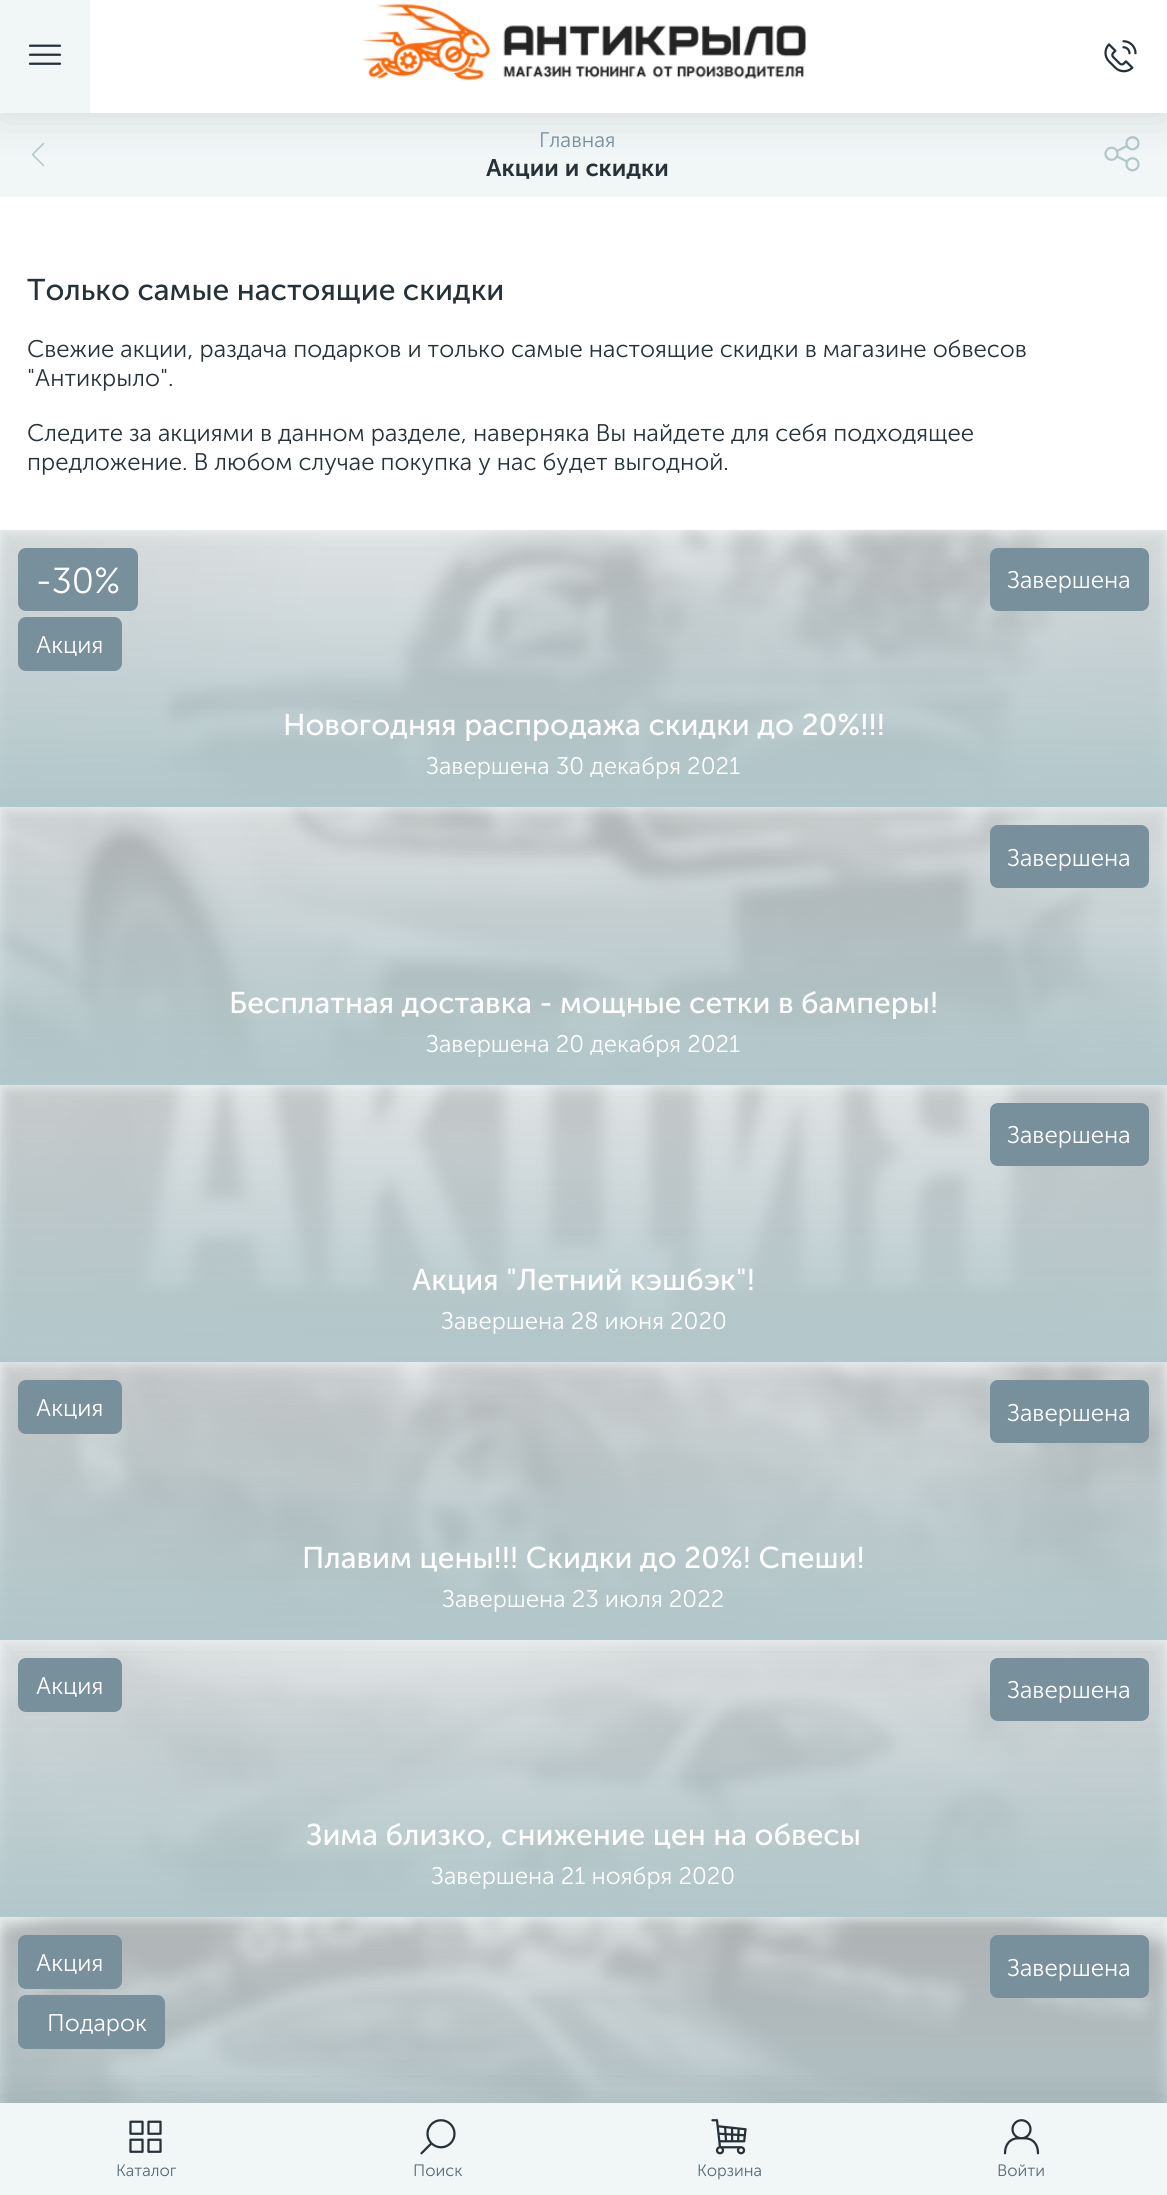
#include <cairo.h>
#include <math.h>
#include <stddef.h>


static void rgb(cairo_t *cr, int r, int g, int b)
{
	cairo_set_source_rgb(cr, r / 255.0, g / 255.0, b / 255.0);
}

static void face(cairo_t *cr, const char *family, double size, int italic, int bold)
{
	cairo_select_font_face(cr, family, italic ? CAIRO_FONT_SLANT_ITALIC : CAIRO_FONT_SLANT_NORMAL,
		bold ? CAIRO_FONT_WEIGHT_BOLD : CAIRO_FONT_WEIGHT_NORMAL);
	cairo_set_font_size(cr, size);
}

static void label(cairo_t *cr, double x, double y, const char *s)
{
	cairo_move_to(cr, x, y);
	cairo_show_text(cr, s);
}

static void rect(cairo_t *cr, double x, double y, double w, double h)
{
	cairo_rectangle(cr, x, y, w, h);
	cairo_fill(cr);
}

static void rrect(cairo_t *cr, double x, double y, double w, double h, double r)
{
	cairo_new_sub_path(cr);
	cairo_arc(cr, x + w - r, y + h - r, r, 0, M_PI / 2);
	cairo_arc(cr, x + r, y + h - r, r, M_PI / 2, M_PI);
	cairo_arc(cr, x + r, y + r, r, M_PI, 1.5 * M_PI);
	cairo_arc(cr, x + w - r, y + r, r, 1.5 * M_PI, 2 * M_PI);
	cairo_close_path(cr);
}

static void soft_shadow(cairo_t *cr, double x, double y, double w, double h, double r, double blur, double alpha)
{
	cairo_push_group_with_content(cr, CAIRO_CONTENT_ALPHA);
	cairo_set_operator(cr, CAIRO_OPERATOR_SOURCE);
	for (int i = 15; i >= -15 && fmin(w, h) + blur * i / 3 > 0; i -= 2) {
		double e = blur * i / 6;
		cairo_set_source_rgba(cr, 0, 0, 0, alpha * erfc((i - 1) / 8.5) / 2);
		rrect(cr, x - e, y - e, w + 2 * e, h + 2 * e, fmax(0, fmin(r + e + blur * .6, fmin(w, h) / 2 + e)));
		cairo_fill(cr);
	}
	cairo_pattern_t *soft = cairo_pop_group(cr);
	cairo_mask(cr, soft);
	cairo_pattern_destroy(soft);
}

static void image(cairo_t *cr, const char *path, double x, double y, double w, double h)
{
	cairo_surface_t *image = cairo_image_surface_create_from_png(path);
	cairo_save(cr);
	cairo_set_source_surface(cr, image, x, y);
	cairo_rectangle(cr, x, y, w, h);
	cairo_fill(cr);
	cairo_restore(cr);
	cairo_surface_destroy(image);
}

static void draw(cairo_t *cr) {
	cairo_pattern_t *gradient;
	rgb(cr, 255, 255, 255);
	cairo_paint(cr);
	rgb(cr, 241, 246, 247);
	rect(cr, 0, 113, 1167, 84);
	image(cr, "image0.png", 31, 142, 14, 25);
	face(cr, "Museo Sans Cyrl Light", 21, 0, 0);
	rgb(cr, 120, 144, 156);
	label(cr, 539, 147, "Главная");
	face(cr, "Museo Sans Cyrl SemiBold", 24, 0, 0);
	rgb(cr, 38, 50, 56);
	label(cr, 486, 176, "Акции и скидки");
	image(cr, "image1.png", 1104, 136, 36, 36);
	face(cr, "Museo Sans Cyrl", 30, 0, 0);
	label(cr, 27, 300, "Только самые настоящие скидки");
	face(cr, "Museo Sans Cyrl Light", 24, 0, 0);
	label(cr, 27, 357, "Свежие акции, раздача подарков и только самые настоящие скидки в магазине обвесов");
	label(cr, 27, 386, "\"Антикрыло\".");
	label(cr, 27, 441, "Следите за акциями в данном разделе, наверняка Вы найдете для себя подходящее");
	label(cr, 27, 470, "предложение. В любом случае покупка у нас будет выгодной.");
	rgb(cr, 244, 250, 251);
	rect(cr, 0, 530, 1167, 275);
	rect(cr, 0, 807, 1167, 276);
	cairo_save(cr);
	cairo_rectangle(cr, 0, 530, 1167, 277);
	cairo_clip(cr);
	rgb(cr, 215, 220, 221);
	soft_shadow(cr, 0, 530, 1167, 277, 0, 7.5, 1);
	cairo_restore(cr);
	image(cr, "image2.png", 0, 529, 1167, 276);
	rect(cr, 0, 1085, 1167, 275);
	cairo_save(cr);
	cairo_rectangle(cr, 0, 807, 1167, 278);
	cairo_clip(cr);
	rgb(cr, 215, 220, 221);
	soft_shadow(cr, 0, 807, 1167, 278, 0, 7.5, 1);
	cairo_restore(cr);
	gradient = cairo_pattern_create_linear(584, 529, 584, 807);
	cairo_pattern_add_color_stop_rgba(gradient, 0, 0.698, 0.78, 0.796, 0);
	cairo_pattern_add_color_stop_rgba(gradient, 1, 0.698, 0.78, 0.796, 1);
	cairo_set_source(cr, gradient);
	cairo_pattern_destroy(gradient);
	rect(cr, 0, 540, 1167, 267);
	rgb(cr, 120, 144, 156);
	rrect(cr, 18, 548, 120, 63, 8);
	cairo_fill(cr);
	face(cr, "Museo Sans Cyrl Light", 36, 0, 0);
	rgb(cr, 255, 255, 255);
	label(cr, 36, 593, "-30%");
	rgb(cr, 120, 144, 156);
	rrect(cr, 18, 617, 104, 54, 8);
	cairo_fill(cr);
	face(cr, "Museo Sans Cyrl Light", 24, 0, 0);
	rgb(cr, 255, 255, 255);
	label(cr, 36, 653, "Акция");
	rgb(cr, 120, 144, 156);
	rrect(cr, 990, 548, 159, 63, 8);
	cairo_fill(cr);
	rgb(cr, 255, 255, 255);
	label(cr, 1007, 588, "Завершена");
	face(cr, "Museo Sans Cyrl", 30, 0, 0);
	label(cr, 283, 735, "Новогодняя распродажа скидки до 20%!!!");
	face(cr, "Museo Sans Cyrl Light", 24, 0, 0);
	label(cr, 426, 774, "Завершена 30 декабря 2021");
	image(cr, "image3.png", 0, 807, 1167, 276);
	rgb(cr, 244, 250, 251);
	rect(cr, 0, 1362, 1167, 276);
	cairo_save(cr);
	cairo_rectangle(cr, 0, 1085, 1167, 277);
	cairo_clip(cr);
	rgb(cr, 215, 220, 221);
	soft_shadow(cr, 0, 1085, 1167, 277, 0, 7.5, 1);
	cairo_restore(cr);
	gradient = cairo_pattern_create_linear(584, 807, 584, 1085);
	cairo_pattern_add_color_stop_rgba(gradient, 0, 0.698, 0.78, 0.796, 0);
	cairo_pattern_add_color_stop_rgba(gradient, 1, 0.698, 0.78, 0.796, 1);
	cairo_set_source(cr, gradient);
	cairo_pattern_destroy(gradient);
	rect(cr, 0, 818, 1167, 267);
	rgb(cr, 120, 144, 156);
	rrect(cr, 990, 825, 159, 63, 8);
	cairo_fill(cr);
	rgb(cr, 255, 255, 255);
	label(cr, 1007, 866, "Завершена");
	face(cr, "Museo Sans Cyrl", 30, 0, 0);
	label(cr, 229, 1013, "Бесплатная доставка - мощные сетки в бамперы!");
	face(cr, "Museo Sans Cyrl Light", 24, 0, 0);
	label(cr, 426, 1052, "Завершена 20 декабря 2021");
	image(cr, "image4.png", 0, 1085, 1167, 275);
	rgb(cr, 244, 250, 251);
	rect(cr, 0, 1640, 1167, 275);
	cairo_save(cr);
	cairo_rectangle(cr, 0, 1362, 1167, 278);
	cairo_clip(cr);
	rgb(cr, 215, 220, 221);
	soft_shadow(cr, 0, 1362, 1167, 278, 0, 7.5, 1);
	cairo_restore(cr);
	gradient = cairo_pattern_create_linear(584, 1085, 584, 1362);
	cairo_pattern_add_color_stop_rgba(gradient, 0, 0.698, 0.78, 0.796, 0);
	cairo_pattern_add_color_stop_rgba(gradient, 1, 0.698, 0.78, 0.796, 1);
	cairo_set_source(cr, gradient);
	cairo_pattern_destroy(gradient);
	rect(cr, 0, 1096, 1167, 266);
	rgb(cr, 120, 144, 156);
	rrect(cr, 990, 1103, 159, 63, 8);
	cairo_fill(cr);
	rgb(cr, 255, 255, 255);
	label(cr, 1007, 1143, "Завершена");
	face(cr, "Museo Sans Cyrl", 30, 0, 0);
	label(cr, 412, 1290, "Акция \"Летний кэшбэк\"!");
	face(cr, "Museo Sans Cyrl Light", 24, 0, 0);
	label(cr, 441, 1329, "Завершена 28 июня 2020");
	image(cr, "image5.png", 0, 1362, 1167, 276);
	rgb(cr, 244, 250, 251);
	rect(cr, 0, 1917, 1167, 186);
	cairo_save(cr);
	cairo_rectangle(cr, 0, 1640, 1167, 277);
	cairo_clip(cr);
	rgb(cr, 215, 220, 221);
	soft_shadow(cr, 0, 1640, 1167, 277, 0, 7.5, 1);
	cairo_restore(cr);
	gradient = cairo_pattern_create_linear(584, 1362, 584, 1640);
	cairo_pattern_add_color_stop_rgba(gradient, 0, 0.698, 0.78, 0.796, 0);
	cairo_pattern_add_color_stop_rgba(gradient, 1, 0.698, 0.78, 0.796, 1);
	cairo_set_source(cr, gradient);
	cairo_pattern_destroy(gradient);
	rect(cr, 0, 1379, 1167, 261);
	rgb(cr, 120, 144, 156);
	rrect(cr, 18, 1380, 104, 54, 8);
	cairo_fill(cr);
	rgb(cr, 255, 255, 255);
	label(cr, 36, 1416, "Акция");
	rgb(cr, 120, 144, 156);
	rrect(cr, 990, 1380, 159, 63, 8);
	cairo_fill(cr);
	rgb(cr, 255, 255, 255);
	label(cr, 1007, 1421, "Завершена");
	face(cr, "Museo Sans Cyrl", 30, 0, 0);
	label(cr, 302, 1568, "Плавим цены!!! Скидки до 20%! Спеши!");
	face(cr, "Museo Sans Cyrl Light", 24, 0, 0);
	label(cr, 442, 1607, "Завершена 23 июля 2022");
	image(cr, "image6.png", 0, 1640, 1167, 275);
	cairo_save(cr);
	cairo_rectangle(cr, 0, 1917, 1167, 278);
	cairo_clip(cr);
	rgb(cr, 215, 220, 221);
	soft_shadow(cr, 0, 1917, 1167, 278, 0, 7.5, 1);
	cairo_restore(cr);
	gradient = cairo_pattern_create_linear(584, 1640, 584, 1917);
	cairo_pattern_add_color_stop_rgba(gradient, 0, 0.698, 0.78, 0.796, 0);
	cairo_pattern_add_color_stop_rgba(gradient, 1, 0.698, 0.78, 0.796, 1);
	cairo_set_source(cr, gradient);
	cairo_pattern_destroy(gradient);
	rect(cr, 0, 1651, 1167, 266);
	rgb(cr, 120, 144, 156);
	rrect(cr, 18, 1658, 104, 54, 8);
	cairo_fill(cr);
	rgb(cr, 255, 255, 255);
	label(cr, 36, 1694, "Акция");
	rgb(cr, 120, 144, 156);
	rrect(cr, 990, 1658, 159, 63, 8);
	cairo_fill(cr);
	rgb(cr, 255, 255, 255);
	label(cr, 1007, 1698, "Завершена");
	face(cr, "Museo Sans Cyrl", 30, 0, 0);
	label(cr, 306, 1845, "Зима близко, снижение цен на обвесы");
	face(cr, "Museo Sans Cyrl Light", 24, 0, 0);
	label(cr, 431, 1884, "Завершена 21 ноября 2020");
	image(cr, "image7.png", 0, 1917, 1167, 186);
	gradient = cairo_pattern_create_linear(584, 1917, 584, 2195);
	cairo_pattern_add_color_stop_rgba(gradient, 0, 0.698, 0.78, 0.796, 0);
	cairo_pattern_add_color_stop_rgba(gradient, 1, 0.698, 0.78, 0.796, 1);
	cairo_set_source(cr, gradient);
	cairo_pattern_destroy(gradient);
	rect(cr, 0, 1928, 1167, 175);
	rgb(cr, 120, 144, 156);
	rrect(cr, 18, 1935, 104, 54, 8);
	cairo_fill(cr);
	rgb(cr, 255, 255, 255);
	label(cr, 36, 1971, "Акция");
	rgb(cr, 120, 144, 156);
	rrect(cr, 18, 1995, 147, 54, 8);
	cairo_fill(cr);
	rgb(cr, 255, 255, 255);
	label(cr, 47, 2031, "Подарок");
	rgb(cr, 120, 144, 156);
	rrect(cr, 990, 1935, 159, 63, 8);
	cairo_fill(cr);
	rgb(cr, 255, 255, 255);
	label(cr, 1007, 1976, "Завершена");
	rgb(cr, 38, 50, 56);
	soft_shadow(cr, 0, 0, 1167, 113, 0, 24, 0.16);
	rgb(cr, 255, 255, 255);
	rect(cr, 90, 0, 1077, 113);
	rgb(cr, 241, 246, 247);
	rect(cr, 0, 0, 90, 113);
	image(cr, "image8.png", 28, 44, 34, 21);
	image(cr, "image9.png", 362, 4, 444, 76);
	image(cr, "image10.png", 1104, 40, 33, 33);
	rgb(cr, 38, 50, 56);
	soft_shadow(cr, 0, 2103, 1167, 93, 0, 24, 0.16);
	rgb(cr, 241, 246, 247);
	rect(cr, 0, 2103, 1167, 92);
	image(cr, "image11.png", 129, 2120, 33, 33);
	face(cr, "Museo Sans Cyrl Light", 16.5, 0, 0);
	rgb(cr, 86, 107, 117);
	label(cr, 116, 2176, "Каталог");
	image(cr, "image12.png", 420, 2119, 36, 36);
	label(cr, 413, 2176, "Поиск");
	image(cr, "image13.png", 711, 2119, 36, 36);
	label(cr, 697, 2176, "Корзина");
	image(cr, "image14.png", 1003, 2119, 37, 36);
	label(cr, 997, 2176, "Войти");
}

int main(void) {
	cairo_surface_t *surface = cairo_image_surface_create(CAIRO_FORMAT_RGB24, 1167, 2195);
	cairo_t *cr = cairo_create(surface);
	cairo_font_options_t *options = cairo_font_options_create();
	cairo_font_options_set_hint_metrics(options, CAIRO_HINT_METRICS_OFF);
	cairo_font_options_set_hint_style(options, CAIRO_HINT_STYLE_NONE);
	cairo_set_font_options(cr, options);
	cairo_set_miter_limit(cr, 4);
	draw(cr);
	cairo_surface_write_to_png(surface, "render.png");
	cairo_font_options_destroy(options);
	cairo_destroy(cr);
	cairo_surface_destroy(surface);
	return 0;
}
